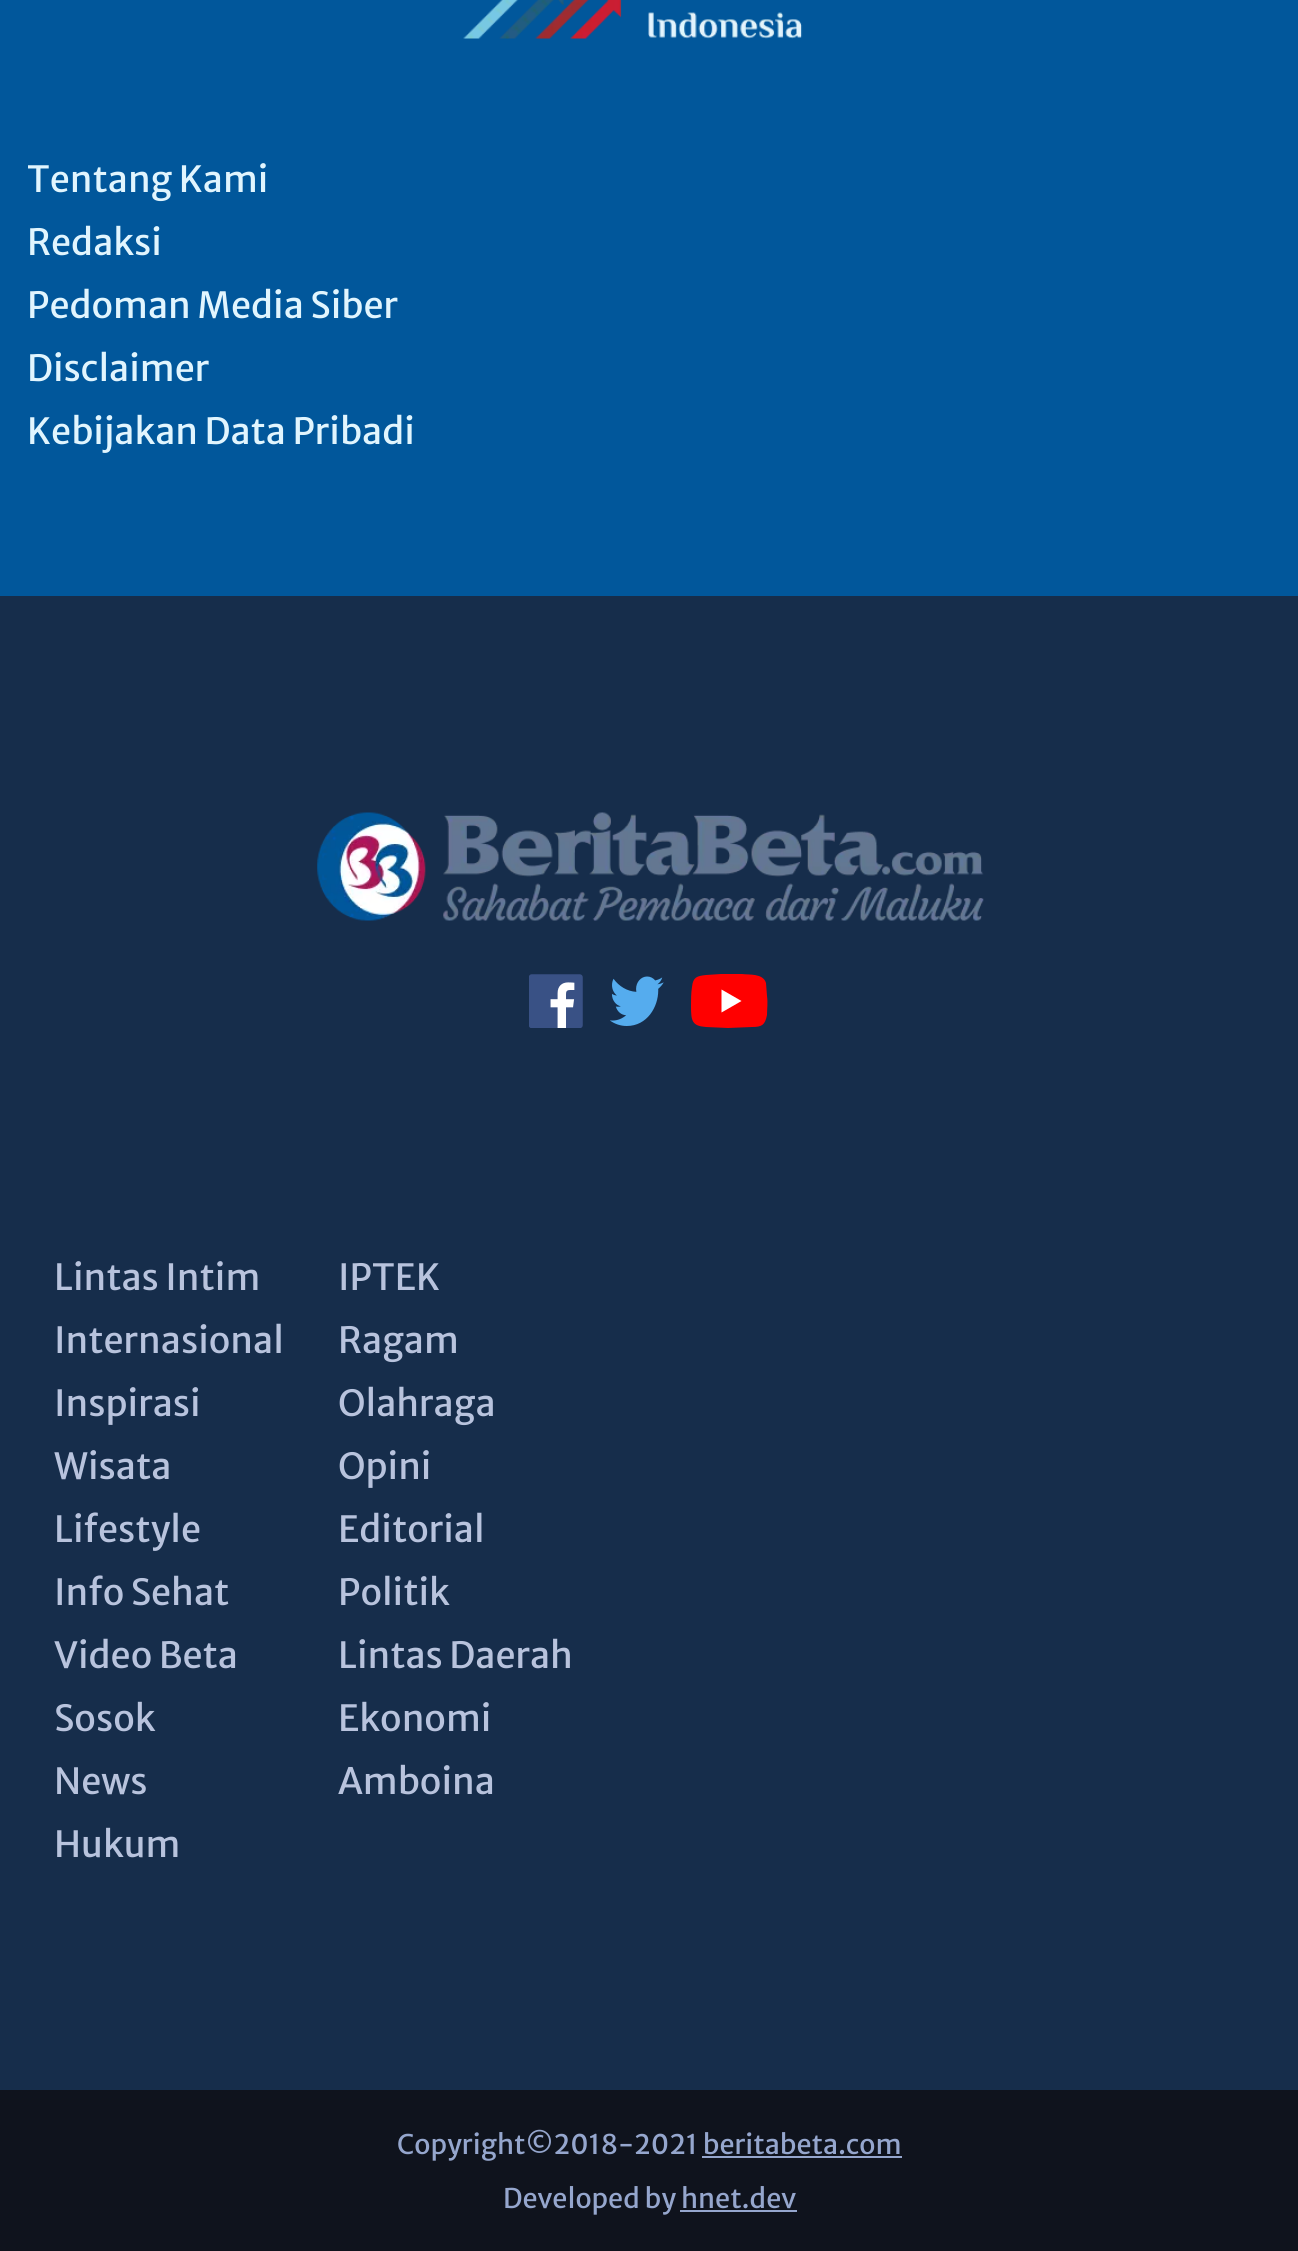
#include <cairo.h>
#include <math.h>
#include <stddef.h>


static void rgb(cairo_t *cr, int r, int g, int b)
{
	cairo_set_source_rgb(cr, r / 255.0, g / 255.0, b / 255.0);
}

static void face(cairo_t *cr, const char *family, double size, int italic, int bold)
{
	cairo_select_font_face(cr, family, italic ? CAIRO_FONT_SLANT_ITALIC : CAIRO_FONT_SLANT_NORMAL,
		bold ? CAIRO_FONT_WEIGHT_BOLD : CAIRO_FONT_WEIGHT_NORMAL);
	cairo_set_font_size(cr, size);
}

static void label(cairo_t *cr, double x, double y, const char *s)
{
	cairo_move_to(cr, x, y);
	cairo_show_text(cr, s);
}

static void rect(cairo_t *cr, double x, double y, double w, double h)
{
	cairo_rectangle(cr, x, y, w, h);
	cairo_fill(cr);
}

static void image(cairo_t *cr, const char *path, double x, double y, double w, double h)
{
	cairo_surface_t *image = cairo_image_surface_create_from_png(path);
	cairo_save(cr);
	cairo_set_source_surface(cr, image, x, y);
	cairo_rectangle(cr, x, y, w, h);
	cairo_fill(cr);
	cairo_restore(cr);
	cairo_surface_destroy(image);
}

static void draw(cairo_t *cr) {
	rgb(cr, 1, 87, 155);
	cairo_paint(cr);
	image(cr, "image0.png", 463, 0, 340, 39);
	face(cr, "Merriweather Sans", 36, 0, 0);
	rgb(cr, 225, 245, 254);
	label(cr, 27, 192, "Tentang Kami");
	label(cr, 27, 255, "Redaksi");
	label(cr, 27, 318, "Pedoman Media Siber");
	label(cr, 27, 381, "Disclaimer");
	label(cr, 27, 444, "Kebijakan Data Pribadi");
	rgb(cr, 22, 45, 75);
	rect(cr, 0, 596, 1298, 1494);
	image(cr, "image1.png", 317, 812, 667, 109);
	image(cr, "image2.png", 529, 974, 54, 54);
	image(cr, "image3.png", 610, 976, 54, 50);
	rgb(cr, 255, 0, 0);
	cairo_new_path(cr);
	cairo_move_to(cr, 766, 983);
	cairo_curve_to(cr, 763, 973, 749, 975, 742, 974);
	cairo_line_to(cr, 721, 974);
	cairo_line_to(cr, 706, 975);
	cairo_curve_to(cr, 697, 976, 693, 977, 692, 987);
	cairo_curve_to(cr, 691, 993, 691, 1000, 691, 1006);
	cairo_curve_to(cr, 691, 1021, 692, 1026, 706, 1027);
	cairo_line_to(cr, 728, 1028);
	cairo_line_to(cr, 752, 1027);
	cairo_curve_to(cr, 762, 1027, 765, 1025, 767, 1015);
	cairo_curve_to(cr, 767, 1009, 768, 1003, 767, 996);
	cairo_close_path(cr);
	cairo_fill(cr);
	rgb(cr, 255, 255, 255);
	cairo_new_path(cr);
	cairo_move_to(cr, 721.5, 1012.5);
	cairo_line_to(cr, 741.5, 1001);
	cairo_line_to(cr, 721.5, 989.5);
	cairo_close_path(cr);
	cairo_fill(cr);
	rgb(cr, 184, 195, 221);
	label(cr, 54, 1290, "Lintas Intim");
	label(cr, 54, 1353, "Internasional");
	label(cr, 54, 1416, "Inspirasi");
	label(cr, 54, 1479, "Wisata");
	label(cr, 54, 1542, "Lifestyle");
	label(cr, 54, 1605, "Info Sehat");
	label(cr, 54, 1668, "Video Beta");
	label(cr, 54, 1731, "Sosok");
	label(cr, 54, 1794, "News");
	label(cr, 54, 1857, "Hukum");
	label(cr, 338, 1290, "IPTEK");
	label(cr, 338, 1353, "Ragam");
	label(cr, 338, 1416, "Olahraga");
	label(cr, 338, 1479, "Opini");
	label(cr, 338, 1542, "Editorial");
	label(cr, 338, 1605, "Politik");
	label(cr, 338, 1668, "Lintas Daerah");
	label(cr, 338, 1731, "Ekonomi");
	label(cr, 338, 1794, "Amboina");
	rgb(cr, 15, 19, 29);
	rect(cr, 0, 2090, 1298, 161);
	face(cr, "Merriweather Sans", 27, 0, 0);
	rgb(cr, 149, 166, 205);
	label(cr, 397, 2154, "Copyright©2018-2021 beritabeta.com");
	rect(cr, 702, 2156, 200, 2);
	label(cr, 503, 2208, "Developed by hnet.dev");
	rect(cr, 680, 2210, 117, 2);
}

int main(void) {
	cairo_surface_t *surface = cairo_image_surface_create(CAIRO_FORMAT_RGB24, 1298, 2251);
	cairo_t *cr = cairo_create(surface);
	cairo_font_options_t *options = cairo_font_options_create();
	cairo_font_options_set_hint_metrics(options, CAIRO_HINT_METRICS_OFF);
	cairo_font_options_set_hint_style(options, CAIRO_HINT_STYLE_NONE);
	cairo_set_font_options(cr, options);
	cairo_set_miter_limit(cr, 4);
	draw(cr);
	cairo_surface_write_to_png(surface, "render.png");
	cairo_font_options_destroy(options);
	cairo_destroy(cr);
	cairo_surface_destroy(surface);
	return 0;
}
